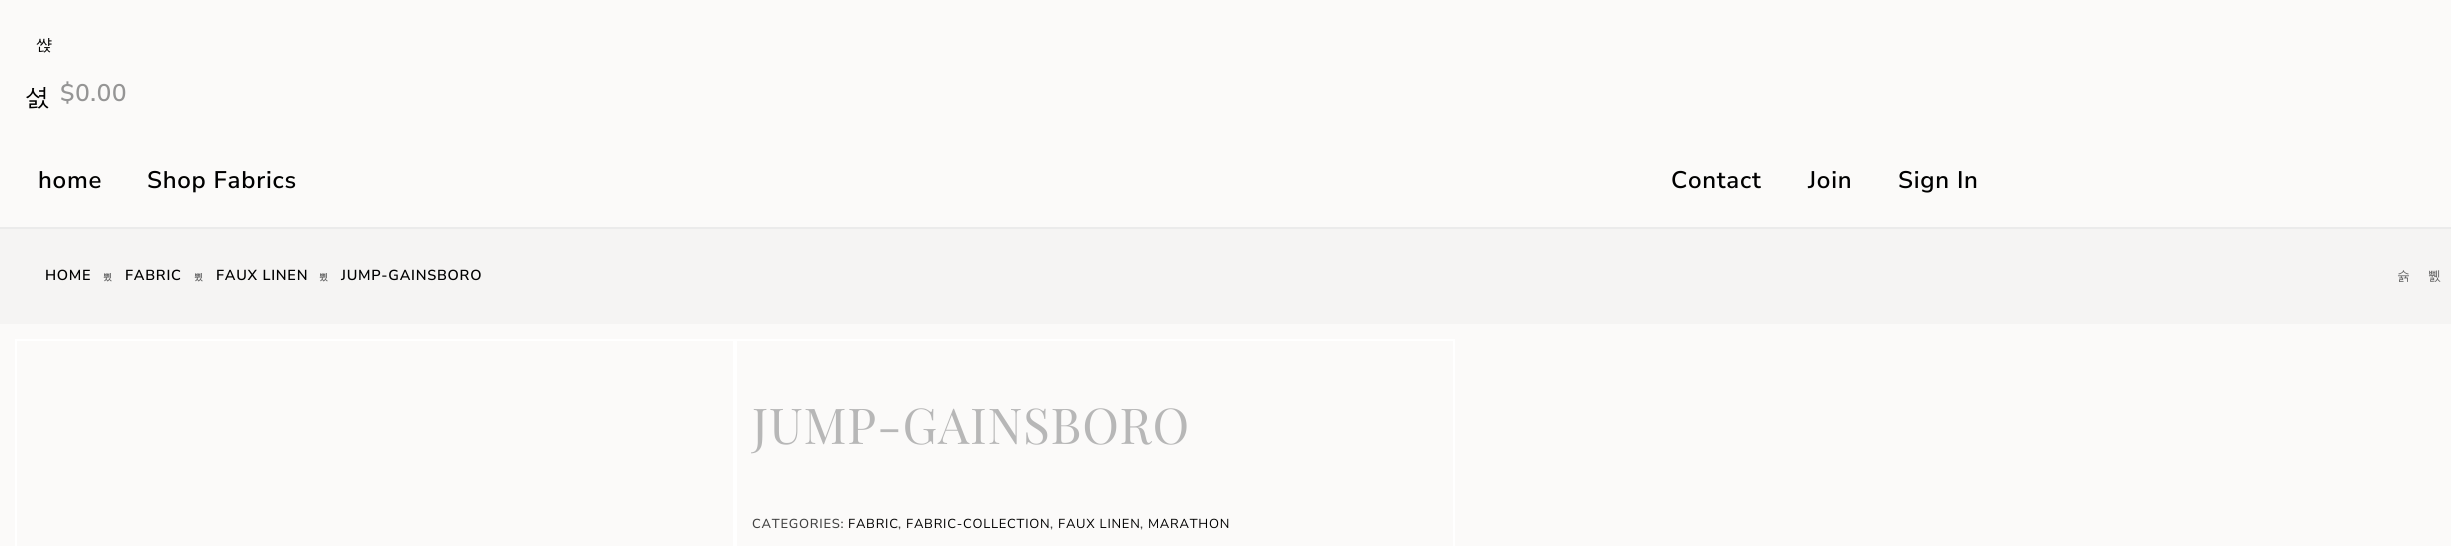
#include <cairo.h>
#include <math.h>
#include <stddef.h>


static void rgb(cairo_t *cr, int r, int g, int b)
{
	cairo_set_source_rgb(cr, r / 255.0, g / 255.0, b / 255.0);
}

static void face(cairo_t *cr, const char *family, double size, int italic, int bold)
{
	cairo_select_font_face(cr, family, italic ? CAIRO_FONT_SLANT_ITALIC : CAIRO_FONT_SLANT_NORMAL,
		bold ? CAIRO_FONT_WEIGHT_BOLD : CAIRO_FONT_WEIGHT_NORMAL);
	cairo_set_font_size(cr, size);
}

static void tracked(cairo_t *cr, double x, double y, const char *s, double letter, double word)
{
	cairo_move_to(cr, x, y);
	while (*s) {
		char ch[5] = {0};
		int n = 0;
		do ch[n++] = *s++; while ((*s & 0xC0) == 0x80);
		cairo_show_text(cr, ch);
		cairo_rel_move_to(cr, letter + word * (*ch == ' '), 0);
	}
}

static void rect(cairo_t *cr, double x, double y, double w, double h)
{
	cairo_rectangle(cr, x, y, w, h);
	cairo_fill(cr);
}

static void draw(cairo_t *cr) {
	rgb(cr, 251, 250, 249);
	cairo_paint(cr);
	face(cr, "WenQuanYi Zen Hei Medium", 16, 0, 0);
	rgb(cr, 0, 0, 0);
	tracked(cr, 36, 50, "쌵", 0.75, 0);
	face(cr, "WenQuanYi Zen Hei Medium", 24, 0, 0);
	tracked(cr, 25, 105, "셠", 0.75, 0);
	face(cr, "Nunito Sans SemiBold", 24, 0, 0);
	rgb(cr, 149, 149, 149);
	tracked(cr, 60, 101, "$0.00", 0.75, 0);
	rgb(cr, 235, 235, 235);
	rect(cr, 0, 227, 2451, 2);
	rgb(cr, 0, 0, 0);
	tracked(cr, 38, 188, "home", 0.75, 0);
	tracked(cr, 147, 188, "Shop Fabrics", 0.75, 0);
	tracked(cr, 1671, 188, "Contact", 0.75, 0);
	tracked(cr, 1808, 188, "Join", 0.75, 0);
	tracked(cr, 1898, 188, "Sign In", 0.75, 0);
	rgb(cr, 245, 244, 243);
	rect(cr, 0, 229, 2451, 95);
	face(cr, "Nunito Sans SemiBold", 14.5, 0, 0);
	rgb(cr, 0, 0, 0);
	tracked(cr, 45, 280, "HOME", 0.75, 0);
	face(cr, "WenQuanYi Zen Hei", 9, 0, 1);
	rgb(cr, 102, 102, 102);
	tracked(cr, 103, 280, "쀴", 0.75, 0);
	face(cr, "Nunito Sans SemiBold", 14.5, 0, 0);
	rgb(cr, 0, 0, 0);
	tracked(cr, 125, 280, "FABRIC", 0.75, 0);
	face(cr, "WenQuanYi Zen Hei", 9, 0, 1);
	rgb(cr, 102, 102, 102);
	tracked(cr, 194, 280, "쀴", 0.75, 0);
	face(cr, "Nunito Sans SemiBold", 14.5, 0, 0);
	rgb(cr, 0, 0, 0);
	tracked(cr, 216, 280, "FAUX LINEN", 0.75, 0);
	face(cr, "WenQuanYi Zen Hei", 9, 0, 1);
	rgb(cr, 102, 102, 102);
	tracked(cr, 319, 280, "쀴", 0.75, 0);
	face(cr, "Nunito Sans SemiBold", 14.5, 0, 0);
	rgb(cr, 0, 0, 0);
	tracked(cr, 341, 280, "JUMP-GAINSBORO", 0.75, 0);
	face(cr, "WenQuanYi Zen Hei Medium", 13, 0, 0);
	rgb(cr, 102, 102, 102);
	tracked(cr, 2397, 280, "슑", 0.75, 0);
	tracked(cr, 2428, 280, "쀐", 0.75, 0);
	cairo_rectangle(cr, 16, 340, 718, 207);
	rgb(cr, 255, 255, 255);
	cairo_stroke(cr);
	cairo_rectangle(cr, 736, 340, 718, 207);
	cairo_stroke(cr);
	face(cr, "Playfair Display", 49.5, 0, 0);
	rgb(cr, 183, 183, 183);
	tracked(cr, 752, 444, "JUMP-GAINSBORO", 0.75, 0);
	face(cr, "Nunito Sans Medium", 13, 0, 0);
	rgb(cr, 66, 66, 66);
	tracked(cr, 752, 528, "CATEGORIES:", 0.75, 0);
	face(cr, "Nunito Sans", 13, 0, 0);
	rgb(cr, 0, 0, 0);
	tracked(cr, 848, 528, "FABRIC", 0.75, 0);
	face(cr, "Nunito Sans Medium", 13, 0, 0);
	rgb(cr, 66, 66, 66);
	tracked(cr, 898, 528, ",", 0.75, 0);
	face(cr, "Nunito Sans", 13, 0, 0);
	rgb(cr, 0, 0, 0);
	tracked(cr, 906, 528, "FABRIC-COLLECTION", 0.75, 0);
	face(cr, "Nunito Sans Medium", 13, 0, 0);
	rgb(cr, 66, 66, 66);
	tracked(cr, 1050, 528, ",", 0.75, 0);
	face(cr, "Nunito Sans", 13, 0, 0);
	rgb(cr, 0, 0, 0);
	tracked(cr, 1058, 528, "FAUX LINEN", 0.75, 0);
	face(cr, "Nunito Sans Medium", 13, 0, 0);
	rgb(cr, 66, 66, 66);
	tracked(cr, 1140, 528, ",", 0.75, 0);
	face(cr, "Nunito Sans", 13, 0, 0);
	rgb(cr, 0, 0, 0);
	tracked(cr, 1148, 528, "MARATHON", 0.75, 0);
}

int main(void) {
	cairo_surface_t *surface = cairo_image_surface_create(CAIRO_FORMAT_RGB24, 2451, 546);
	cairo_t *cr = cairo_create(surface);
	cairo_font_options_t *options = cairo_font_options_create();
	cairo_font_options_set_hint_metrics(options, CAIRO_HINT_METRICS_OFF);
	cairo_font_options_set_hint_style(options, CAIRO_HINT_STYLE_NONE);
	cairo_set_font_options(cr, options);
	cairo_set_miter_limit(cr, 4);
	draw(cr);
	cairo_surface_write_to_png(surface, "render.png");
	cairo_font_options_destroy(options);
	cairo_destroy(cr);
	cairo_surface_destroy(surface);
	return 0;
}
